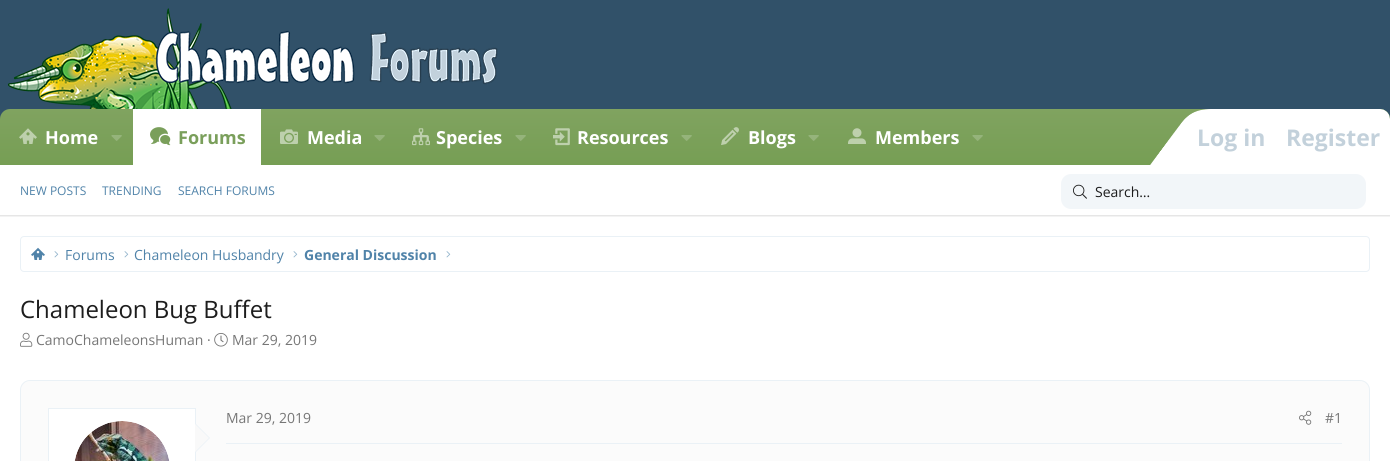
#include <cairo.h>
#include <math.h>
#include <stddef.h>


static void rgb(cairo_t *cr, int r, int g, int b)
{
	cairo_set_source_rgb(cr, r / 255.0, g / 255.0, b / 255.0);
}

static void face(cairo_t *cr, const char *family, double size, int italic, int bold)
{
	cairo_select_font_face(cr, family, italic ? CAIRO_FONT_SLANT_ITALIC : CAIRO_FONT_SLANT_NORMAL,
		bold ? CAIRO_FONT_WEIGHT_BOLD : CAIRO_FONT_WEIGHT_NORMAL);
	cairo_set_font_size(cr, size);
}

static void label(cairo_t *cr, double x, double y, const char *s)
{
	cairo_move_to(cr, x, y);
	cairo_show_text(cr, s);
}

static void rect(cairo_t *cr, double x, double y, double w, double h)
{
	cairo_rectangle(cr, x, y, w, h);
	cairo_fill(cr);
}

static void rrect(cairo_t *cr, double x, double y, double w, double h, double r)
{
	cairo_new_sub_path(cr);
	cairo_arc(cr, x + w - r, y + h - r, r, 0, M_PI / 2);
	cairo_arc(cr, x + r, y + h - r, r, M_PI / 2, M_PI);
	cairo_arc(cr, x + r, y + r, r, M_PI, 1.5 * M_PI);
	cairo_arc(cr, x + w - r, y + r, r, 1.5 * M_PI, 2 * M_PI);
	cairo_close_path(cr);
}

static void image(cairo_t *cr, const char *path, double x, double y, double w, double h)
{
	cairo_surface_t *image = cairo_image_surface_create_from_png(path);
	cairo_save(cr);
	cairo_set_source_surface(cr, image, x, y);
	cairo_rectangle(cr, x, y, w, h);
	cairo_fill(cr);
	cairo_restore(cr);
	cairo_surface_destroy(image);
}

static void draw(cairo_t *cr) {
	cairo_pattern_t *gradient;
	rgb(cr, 49, 81, 105);
	cairo_paint(cr);
	image(cr, "image0.png", 8, 8, 490, 101);
	gradient = cairo_pattern_create_linear(695, 109, 695, 165);
	cairo_pattern_add_color_stop_rgba(gradient, 0, 0.502, 0.639, 0.376, 1);
	cairo_pattern_add_color_stop_rgba(gradient, 1, 0.463, 0.62, 0.329, 1);
	cairo_set_source(cr, gradient);
	cairo_pattern_destroy(gradient);
	cairo_new_path(cr);
	cairo_move_to(cr, 10, 109);
	cairo_line_to(cr, 1380, 109);
	cairo_curve_to(cr, 1385.5, 109, 1390, 113.5, 1390, 119);
	cairo_line_to(cr, 1390, 165);
	cairo_line_to(cr, 0, 165);
	cairo_line_to(cr, 0, 119);
	cairo_curve_to(cr, 0, 113.5, 4.5, 109, 10, 109);
	cairo_close_path(cr);
	cairo_fill(cr);
	image(cr, "image1.png", 19, 128, 18, 16);
	face(cr, "Open Sans", 18, 0, 1);
	rgb(cr, 255, 255, 255);
	label(cr, 45, 144, "Home");
	image(cr, "image2.png", 111, 135, 11, 6);
	rect(cr, 133, 109, 128, 56);
	image(cr, "image3.png", 150, 127, 21, 19);
	rgb(cr, 122, 159, 91);
	label(cr, 178, 144, "Forums");
	image(cr, "image4.png", 280, 129, 18, 15);
	rgb(cr, 255, 255, 255);
	label(cr, 307, 144, "Media");
	image(cr, "image2.png", 374, 135, 11, 6);
	image(cr, "image5.png", 412, 128, 18, 18);
	label(cr, 436, 144, "Species");
	image(cr, "image2.png", 515, 135, 11, 6);
	image(cr, "image6.png", 553, 128, 17, 18);
	label(cr, 577, 144, "Resources");
	image(cr, "image2.png", 681, 135, 11, 6);
	image(cr, "image7.png", 721, 127, 18, 18);
	label(cr, 748, 144, "Blogs");
	image(cr, "image2.png", 808, 135, 11, 6);
	image(cr, "image8.png", 848, 128, 18, 16);
	label(cr, 875, 144, "Members");
	image(cr, "image2.png", 972, 135, 11, 6);
	image(cr, "image9.png", 1150, 109, 240, 56);
	face(cr, "Open Sans", 23, 0, 1);
	rgb(cr, 195, 209, 219);
	label(cr, 1197, 146, "Log in");
	label(cr, 1286, 146, "Register");
	rgb(cr, 243, 243, 243);
	rect(cr, 0, 216, 1390, 1);
	rgb(cr, 255, 255, 255);
	rect(cr, 0, 165, 1390, 50);
	rgb(cr, 230, 230, 230);
	rect(cr, 0, 215, 1390, 1);
	face(cr, "Open Sans", 12, 0, 0);
	rgb(cr, 80, 131, 169);
	label(cr, 20, 195, "NEW POSTS");
	label(cr, 102, 195, "TRENDING");
	label(cr, 178, 195, "SEARCH FORUMS");
	rgb(cr, 242, 246, 249);
	rrect(cr, 1061, 174, 305, 35, 10);
	cairo_fill(cr);
	image(cr, "image10.png", 1073, 184, 14, 15);
	face(cr, "Open Sans", 14, 0, 0);
	rgb(cr, 29, 29, 29);
	label(cr, 1095, 197, "Search…");
	rgb(cr, 255, 255, 255);
	rect(cr, 0, 217, 1390, 244);
	rrect(cr, 20.5, 236.5, 1349, 35, 3.5);
	rgb(cr, 234, 241, 246);
	cairo_set_line_width(cr, 1);
	cairo_stroke(cr);
	image(cr, "image11.png", 31, 247, 14, 13);
	image(cr, "image12.png", 54, 251, 5, 7);
	rgb(cr, 80, 131, 169);
	label(cr, 65, 260, "Forums");
	image(cr, "image12.png", 124, 251, 5, 7);
	label(cr, 134, 260, "Chameleon Husbandry");
	image(cr, "image12.png", 293, 251, 5, 7);
	face(cr, "Open Sans", 14, 0, 1);
	label(cr, 304, 260, "General Discussion");
	image(cr, "image12.png", 446, 251, 5, 7);
	face(cr, "Open Sans", 24, 0, 0);
	rgb(cr, 29, 29, 29);
	label(cr, 20, 318, "Chameleon Bug Buffet");
	image(cr, "image13.png", 20, 332, 13, 15);
	face(cr, "Open Sans", 14, 0, 0);
	rgb(cr, 118, 118, 118);
	label(cr, 36, 345, "CamoChameleonsHuman ·");
	image(cr, "image14.png", 214, 333, 14, 14);
	label(cr, 232, 345, "Mar 29, 2019");
	rgb(cr, 251, 251, 251);
	rrect(cr, 20.5, 380.5, 1349, 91, 9.5);
	cairo_fill_preserve(cr);
	rgb(cr, 234, 241, 246);
	cairo_stroke(cr);
	cairo_rectangle(cr, 48.5, 408.5, 147, 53);
	cairo_stroke(cr);
	rgb(cr, 255, 255, 255);
	rect(cr, 49, 409, 146, 52);
	image(cr, "image15.png", 74, 421, 96, 40);
	rgb(cr, 234, 241, 246);
	cairo_new_path(cr);
	cairo_move_to(cr, 195, 453);
	cairo_line_to(cr, 195, 423);
	cairo_line_to(cr, 210, 438);
	cairo_close_path(cr);
	cairo_fill(cr);
	rgb(cr, 249, 249, 249);
	cairo_new_path(cr);
	cairo_move_to(cr, 195, 452);
	cairo_line_to(cr, 195, 424);
	cairo_line_to(cr, 209, 438);
	cairo_close_path(cr);
	cairo_fill(cr);
	rgb(cr, 234, 241, 246);
	rect(cr, 226, 443, 1116, 1);
	rgb(cr, 118, 118, 118);
	label(cr, 226, 423, "Mar 29, 2019");
	image(cr, "image16.png", 1299, 410, 13, 15);
	label(cr, 1325, 423, "#1");
}

int main(void) {
	cairo_surface_t *surface = cairo_image_surface_create(CAIRO_FORMAT_RGB24, 1390, 461);
	cairo_t *cr = cairo_create(surface);
	cairo_font_options_t *options = cairo_font_options_create();
	cairo_font_options_set_hint_metrics(options, CAIRO_HINT_METRICS_OFF);
	cairo_font_options_set_hint_style(options, CAIRO_HINT_STYLE_NONE);
	cairo_set_font_options(cr, options);
	cairo_set_miter_limit(cr, 4);
	draw(cr);
	cairo_surface_write_to_png(surface, "render.png");
	cairo_font_options_destroy(options);
	cairo_destroy(cr);
	cairo_surface_destroy(surface);
	return 0;
}
